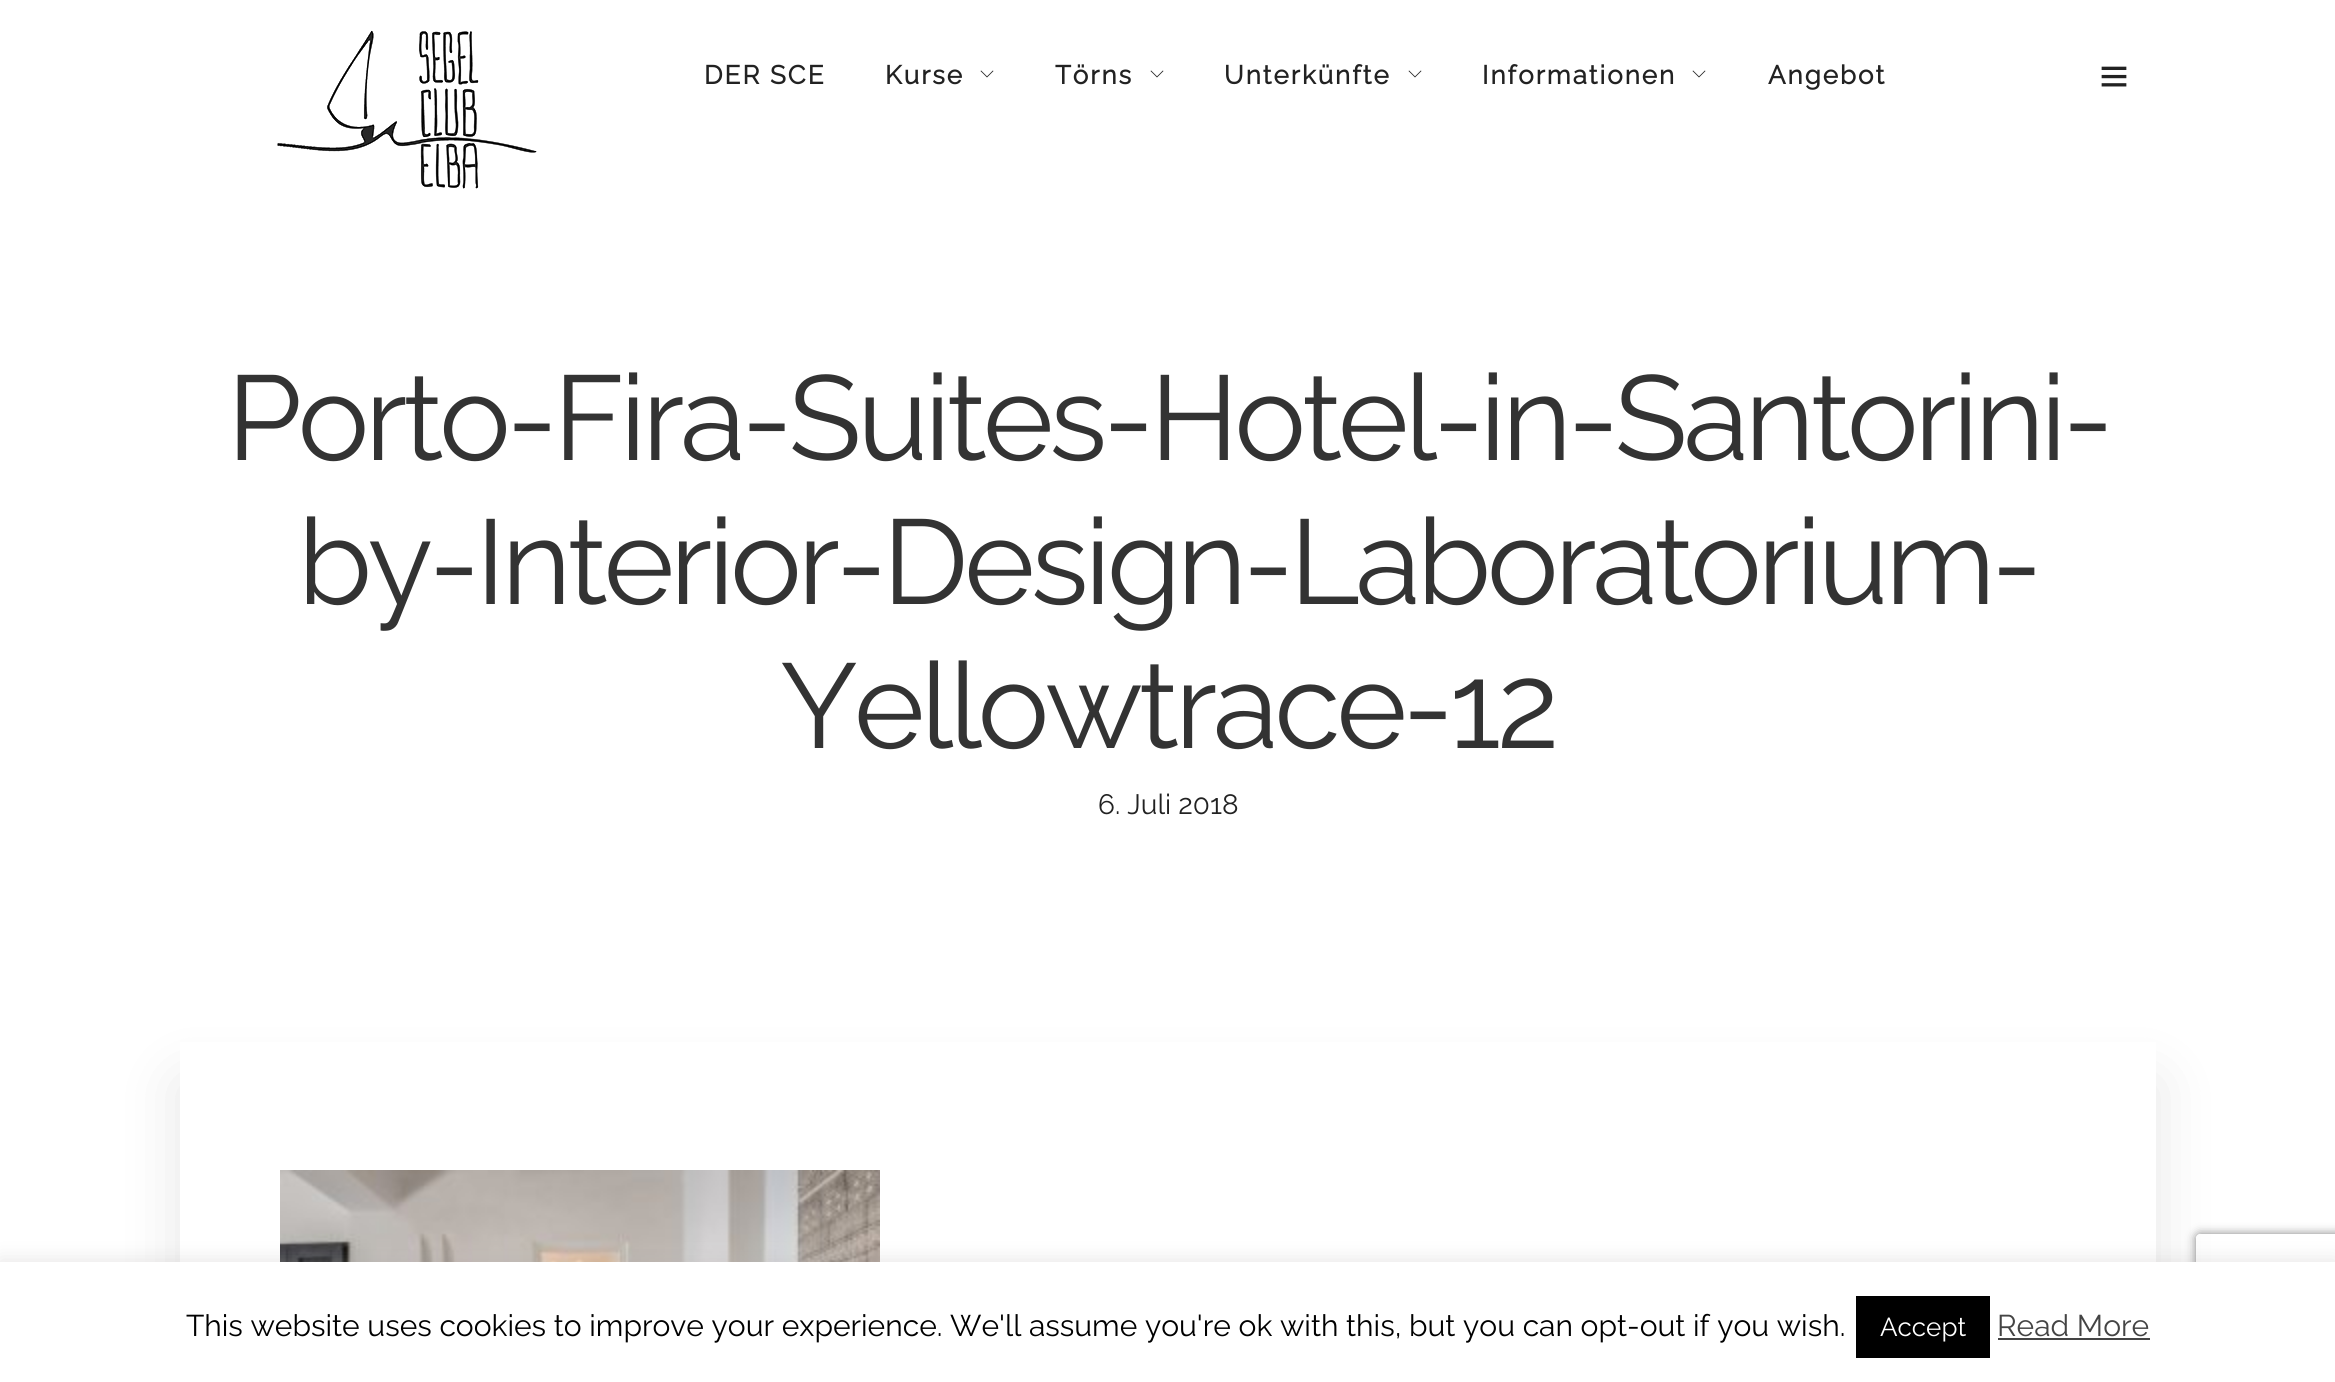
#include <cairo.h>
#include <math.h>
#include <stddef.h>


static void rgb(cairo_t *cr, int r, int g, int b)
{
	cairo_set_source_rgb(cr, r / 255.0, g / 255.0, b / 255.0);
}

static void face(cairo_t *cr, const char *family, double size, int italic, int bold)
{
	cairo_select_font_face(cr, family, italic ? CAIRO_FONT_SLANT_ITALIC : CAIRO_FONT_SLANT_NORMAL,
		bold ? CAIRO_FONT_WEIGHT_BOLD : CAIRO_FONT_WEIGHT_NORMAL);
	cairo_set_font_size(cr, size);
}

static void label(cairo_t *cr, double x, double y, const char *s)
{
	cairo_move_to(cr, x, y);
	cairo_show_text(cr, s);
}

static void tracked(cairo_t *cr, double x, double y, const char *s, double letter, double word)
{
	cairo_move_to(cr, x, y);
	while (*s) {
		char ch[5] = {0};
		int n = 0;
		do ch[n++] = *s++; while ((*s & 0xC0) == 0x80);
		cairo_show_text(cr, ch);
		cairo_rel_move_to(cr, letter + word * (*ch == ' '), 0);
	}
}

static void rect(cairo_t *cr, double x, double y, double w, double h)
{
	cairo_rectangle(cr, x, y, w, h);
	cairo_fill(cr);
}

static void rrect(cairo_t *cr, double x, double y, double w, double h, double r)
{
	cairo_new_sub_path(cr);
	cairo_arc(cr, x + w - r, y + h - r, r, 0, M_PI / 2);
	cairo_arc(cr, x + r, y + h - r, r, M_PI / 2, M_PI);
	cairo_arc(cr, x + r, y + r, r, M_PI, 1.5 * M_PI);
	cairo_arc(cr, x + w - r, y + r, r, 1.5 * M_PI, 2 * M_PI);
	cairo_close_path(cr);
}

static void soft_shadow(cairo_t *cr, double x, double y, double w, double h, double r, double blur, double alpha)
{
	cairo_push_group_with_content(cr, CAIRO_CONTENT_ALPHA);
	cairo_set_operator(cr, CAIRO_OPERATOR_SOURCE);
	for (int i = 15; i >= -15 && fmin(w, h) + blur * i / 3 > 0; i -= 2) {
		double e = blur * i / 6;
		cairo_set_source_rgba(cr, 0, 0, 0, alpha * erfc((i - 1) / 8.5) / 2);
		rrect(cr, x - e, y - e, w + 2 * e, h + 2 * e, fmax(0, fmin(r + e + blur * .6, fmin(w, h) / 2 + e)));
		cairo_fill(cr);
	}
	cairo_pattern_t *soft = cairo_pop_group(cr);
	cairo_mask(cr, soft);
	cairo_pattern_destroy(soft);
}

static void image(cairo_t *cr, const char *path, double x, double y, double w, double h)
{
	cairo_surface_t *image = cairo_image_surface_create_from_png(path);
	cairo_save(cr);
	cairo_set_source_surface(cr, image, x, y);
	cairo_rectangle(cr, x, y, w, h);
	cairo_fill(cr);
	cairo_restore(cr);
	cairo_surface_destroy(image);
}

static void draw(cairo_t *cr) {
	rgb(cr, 255, 255, 255);
	cairo_paint(cr);
	image(cr, "image0.png", 277, 30, 260, 159);
	face(cr, "Raleway", 26, 0, 1);
	rgb(cr, 34, 34, 34);
	tracked(cr, 704, 84, "DER SCE", 2, 0);
	tracked(cr, 885, 84, "Kurse", 2, 0);
	image(cr, "image1.png", 980, 70, 14, 8);
	tracked(cr, 1055, 84, "Törns", 2, 0);
	image(cr, "image1.png", 1150, 70, 14, 8);
	tracked(cr, 1224, 84, "Unterkünfte", 2, 0);
	image(cr, "image1.png", 1408, 70, 14, 8);
	tracked(cr, 1482, 84, "Informationen", 2, 0);
	image(cr, "image1.png", 1692, 70, 14, 8);
	tracked(cr, 1768, 84, "Angebot", 2, 0);
	image(cr, "image2.png", 2101, 66, 26, 21);
	face(cr, "Raleway Thin", 120, 0, 0);
	rgb(cr, 51, 51, 51);
	tracked(cr, 227, 460, "Porto-Fira-Suites-Hotel-in-Santorini-", -4, 0);
	tracked(cr, 298, 604, "by-Interior-Design-Laboratorium-", -4, 0);
	tracked(cr, 780, 748, "Yellowtrace-12", -4, 0);
	face(cr, "Raleway Thin", 28, 0, 0);
	rgb(cr, 34, 34, 34);
	label(cr, 1098, 814, "6. Juli 2018");
	cairo_save(cr);
	cairo_set_fill_rule(cr, CAIRO_FILL_RULE_EVEN_ODD);
	cairo_new_path(cr);
	cairo_move_to(cr, 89, 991);
	cairo_line_to(cr, 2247, 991);
	cairo_line_to(cr, 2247, 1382);
	cairo_line_to(cr, 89, 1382);
	cairo_close_path(cr);
	cairo_move_to(cr, 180, 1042);
	cairo_line_to(cr, 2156, 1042);
	cairo_line_to(cr, 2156, 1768);
	cairo_line_to(cr, 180, 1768);
	cairo_close_path(cr);
	cairo_clip(cr);
	rgb(cr, 1, 1, 1);
	soft_shadow(cr, 180, 1082, 1976, 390, 0, 30, 0.1);
	cairo_restore(cr);
	image(cr, "image3.png", 280, 1170, 600, 92);
	rgb(cr, 172, 171, 171);
	soft_shadow(cr, 0, 1260, 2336, 120, 0, 10, 0.3);
	cairo_save(cr);
	cairo_set_fill_rule(cr, CAIRO_FILL_RULE_EVEN_ODD);
	cairo_new_path(cr);
	cairo_move_to(cr, 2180, 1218);
	cairo_line_to(cr, 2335, 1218);
	cairo_line_to(cr, 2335, 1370);
	cairo_line_to(cr, 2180, 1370);
	cairo_close_path(cr);
	cairo_move_to(cr, 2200, 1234);
	cairo_line_to(cr, 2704, 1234);
	cairo_curve_to(cr, 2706, 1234, 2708, 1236, 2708, 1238);
	cairo_line_to(cr, 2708, 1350);
	cairo_curve_to(cr, 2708, 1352, 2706, 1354, 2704, 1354);
	cairo_line_to(cr, 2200, 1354);
	cairo_curve_to(cr, 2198, 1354, 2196, 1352, 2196, 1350);
	cairo_line_to(cr, 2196, 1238);
	cairo_curve_to(cr, 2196, 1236, 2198, 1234, 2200, 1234);
	cairo_close_path(cr);
	cairo_clip(cr);
	rgb(cr, 128, 128, 128);
	soft_shadow(cr, 2196, 1234, 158, 120, 4, 5, 1);
	cairo_restore(cr);
	rgb(cr, 255, 255, 255);
	rect(cr, 0, 1262, 2335, 120);
	face(cr, "Raleway Thin", 30, 0, 0);
	rgb(cr, 0, 0, 0);
	label(cr, 186, 1336, "This website uses cookies to improve your experience. We'll assume you're ok with this, but you can opt-out if you wish.");
	rect(cr, 1856, 1296, 134, 62);
	face(cr, "Raleway Thin", 26, 0, 0);
	rgb(cr, 255, 255, 255);
	label(cr, 1880, 1336, "Accept");
	face(cr, "Raleway Thin", 30, 0, 0);
	rgb(cr, 68, 68, 68);
	label(cr, 1997, 1336, "Read More");
	rect(cr, 1998, 1338, 152, 2);
}

int main(void) {
	cairo_surface_t *surface = cairo_image_surface_create(CAIRO_FORMAT_RGB24, 2335, 1382);
	cairo_t *cr = cairo_create(surface);
	cairo_font_options_t *options = cairo_font_options_create();
	cairo_font_options_set_hint_metrics(options, CAIRO_HINT_METRICS_OFF);
	cairo_font_options_set_hint_style(options, CAIRO_HINT_STYLE_NONE);
	cairo_set_font_options(cr, options);
	cairo_set_miter_limit(cr, 4);
	draw(cr);
	cairo_surface_write_to_png(surface, "render.png");
	cairo_font_options_destroy(options);
	cairo_destroy(cr);
	cairo_surface_destroy(surface);
	return 0;
}
